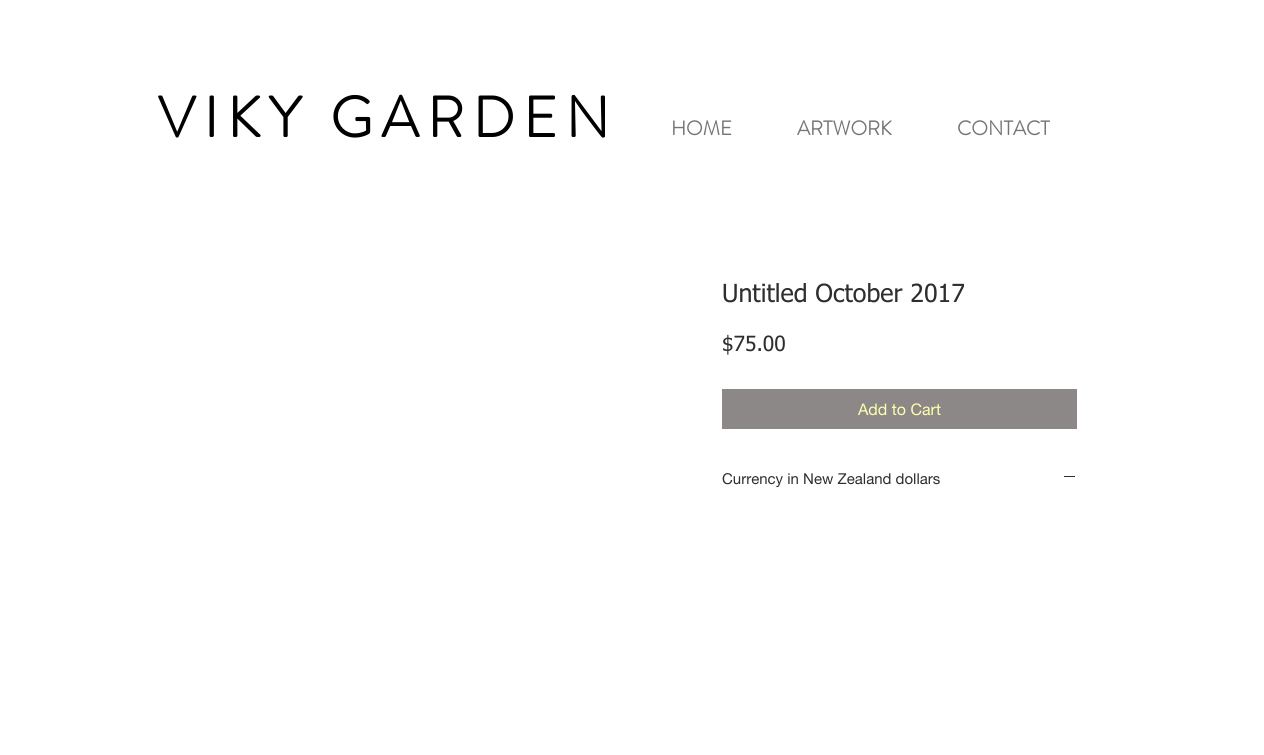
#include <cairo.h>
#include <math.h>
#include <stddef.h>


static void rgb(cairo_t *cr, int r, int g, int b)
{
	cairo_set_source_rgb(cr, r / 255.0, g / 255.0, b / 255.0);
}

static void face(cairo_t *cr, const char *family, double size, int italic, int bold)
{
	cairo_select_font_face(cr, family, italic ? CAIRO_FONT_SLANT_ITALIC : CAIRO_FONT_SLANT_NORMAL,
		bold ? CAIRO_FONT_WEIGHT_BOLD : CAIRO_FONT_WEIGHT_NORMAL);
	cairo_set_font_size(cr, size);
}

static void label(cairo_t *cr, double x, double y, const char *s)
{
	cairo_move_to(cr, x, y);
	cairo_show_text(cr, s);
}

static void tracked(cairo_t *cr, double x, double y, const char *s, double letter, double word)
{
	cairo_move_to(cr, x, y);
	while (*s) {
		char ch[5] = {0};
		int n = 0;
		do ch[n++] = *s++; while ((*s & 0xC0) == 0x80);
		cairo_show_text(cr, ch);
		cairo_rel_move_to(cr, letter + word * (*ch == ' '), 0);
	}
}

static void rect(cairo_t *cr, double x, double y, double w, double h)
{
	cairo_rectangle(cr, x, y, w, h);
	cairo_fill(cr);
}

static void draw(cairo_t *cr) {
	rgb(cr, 255, 255, 255);
	cairo_paint(cr);
	face(cr, "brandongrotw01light", 57, 0, 1);
	rgb(cr, 0, 0, 0);
	tracked(cr, 158, 137, "VIKY GARDEN", 8.5, 0);
	face(cr, "brandongrotw01light", 20, 0, 1);
	rgb(cr, 117, 117, 117);
	label(cr, 671, 135, "HOME");
	label(cr, 797, 135, "ARTWORK");
	label(cr, 957, 135, "CONTACT");
	face(cr, "tahoma", 25, 0, 0);
	rgb(cr, 47, 45, 45);
	label(cr, 722, 302, "Untitled October 2017");
	face(cr, "tahoma", 21, 0, 0);
	label(cr, 722, 351, "$75.00");
	rgb(cr, 141, 136, 136);
	rect(cr, 722, 389, 355, 40);
	face(cr, "helvetica neue", 16, 0, 0);
	rgb(cr, 254, 255, 174);
	label(cr, 858, 415, "Add to Cart");
	face(cr, "helvetica neue", 15, 0, 0);
	rgb(cr, 47, 45, 45);
	label(cr, 722, 484, "Currency in New Zealand dollars");
	rect(cr, 1064, 476, 11, 1);
}

int main(void) {
	cairo_surface_t *surface = cairo_image_surface_create(CAIRO_FORMAT_RGB24, 1264, 755);
	cairo_t *cr = cairo_create(surface);
	cairo_font_options_t *options = cairo_font_options_create();
	cairo_font_options_set_hint_metrics(options, CAIRO_HINT_METRICS_OFF);
	cairo_font_options_set_hint_style(options, CAIRO_HINT_STYLE_NONE);
	cairo_set_font_options(cr, options);
	cairo_set_miter_limit(cr, 4);
	draw(cr);
	cairo_surface_write_to_png(surface, "render.png");
	cairo_font_options_destroy(options);
	cairo_destroy(cr);
	cairo_surface_destroy(surface);
	return 0;
}
